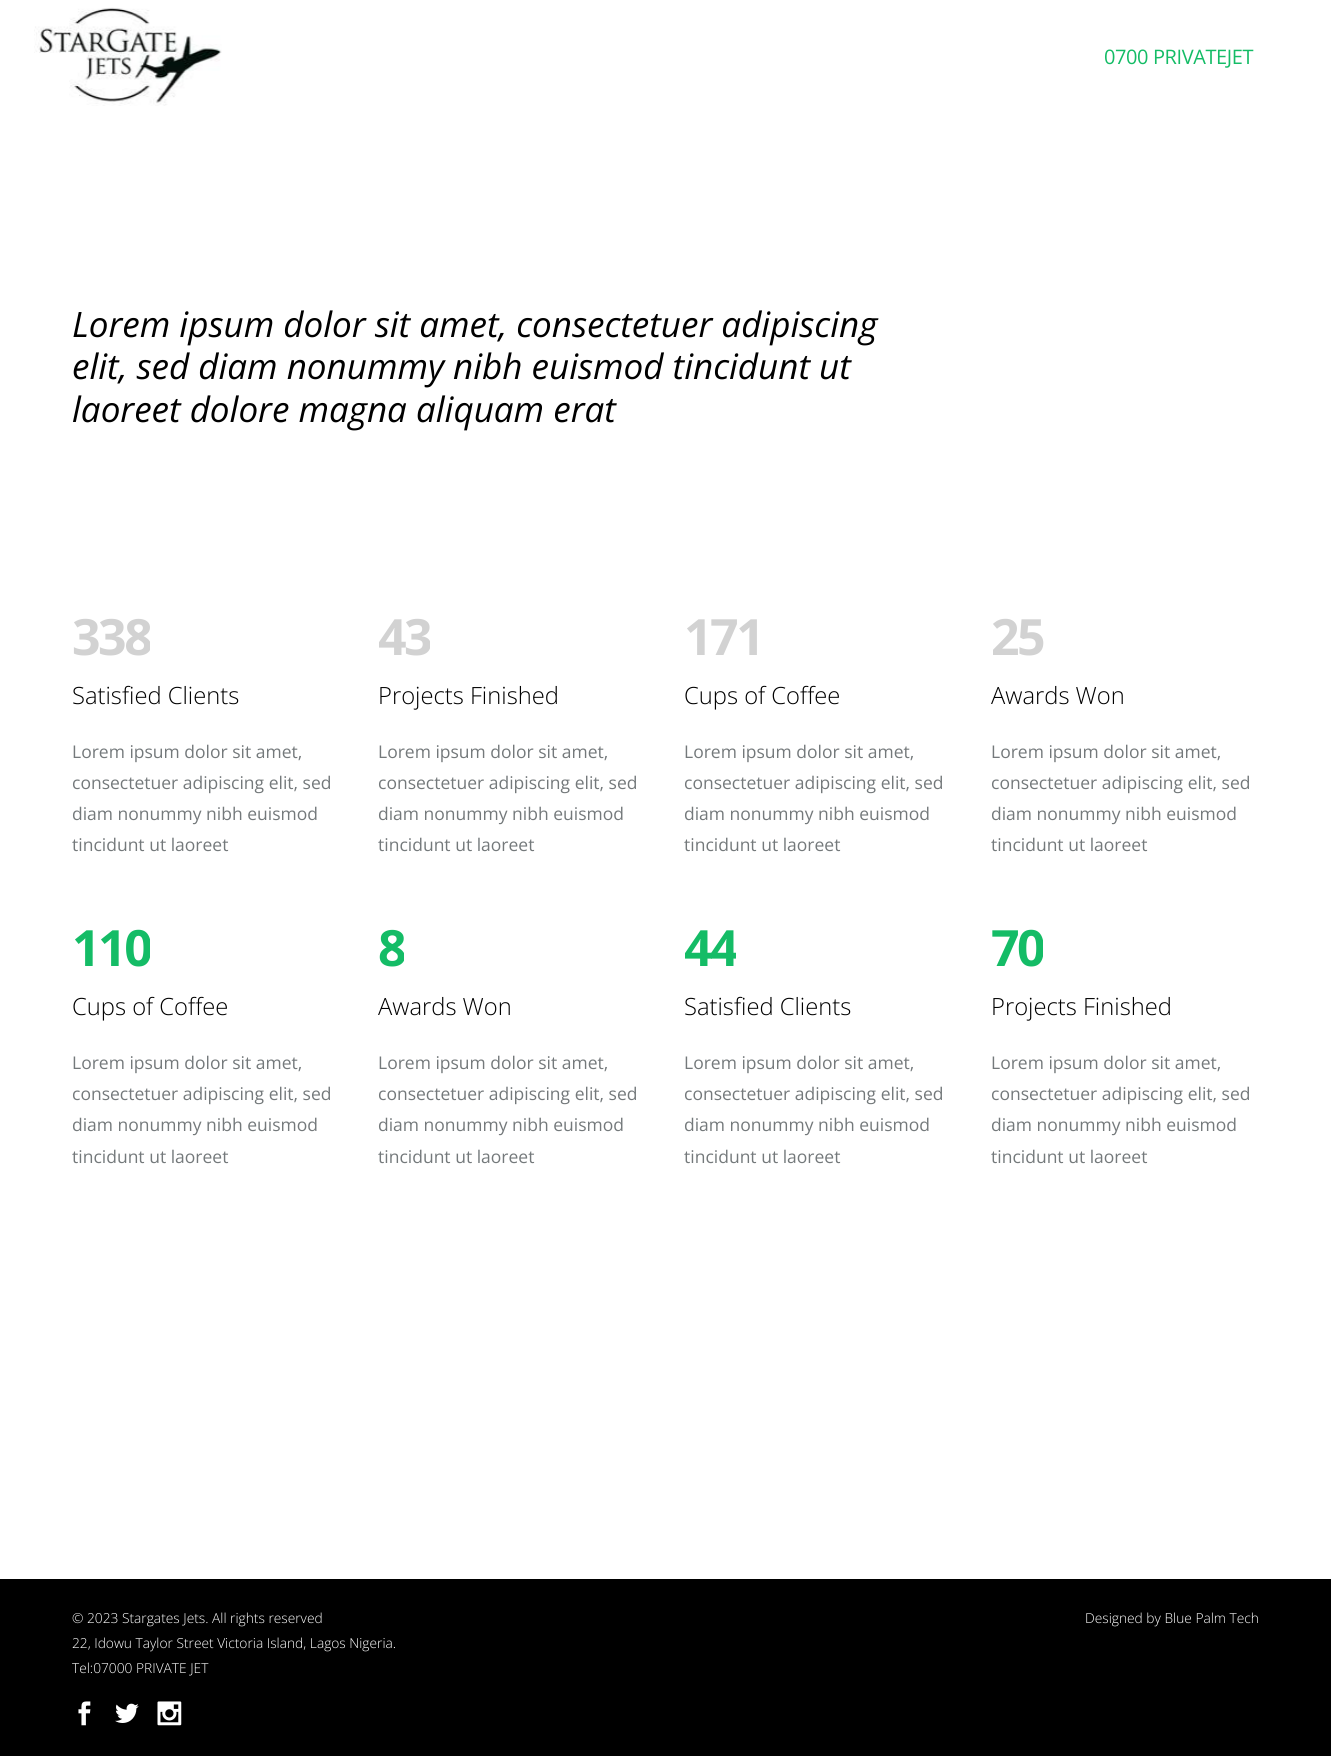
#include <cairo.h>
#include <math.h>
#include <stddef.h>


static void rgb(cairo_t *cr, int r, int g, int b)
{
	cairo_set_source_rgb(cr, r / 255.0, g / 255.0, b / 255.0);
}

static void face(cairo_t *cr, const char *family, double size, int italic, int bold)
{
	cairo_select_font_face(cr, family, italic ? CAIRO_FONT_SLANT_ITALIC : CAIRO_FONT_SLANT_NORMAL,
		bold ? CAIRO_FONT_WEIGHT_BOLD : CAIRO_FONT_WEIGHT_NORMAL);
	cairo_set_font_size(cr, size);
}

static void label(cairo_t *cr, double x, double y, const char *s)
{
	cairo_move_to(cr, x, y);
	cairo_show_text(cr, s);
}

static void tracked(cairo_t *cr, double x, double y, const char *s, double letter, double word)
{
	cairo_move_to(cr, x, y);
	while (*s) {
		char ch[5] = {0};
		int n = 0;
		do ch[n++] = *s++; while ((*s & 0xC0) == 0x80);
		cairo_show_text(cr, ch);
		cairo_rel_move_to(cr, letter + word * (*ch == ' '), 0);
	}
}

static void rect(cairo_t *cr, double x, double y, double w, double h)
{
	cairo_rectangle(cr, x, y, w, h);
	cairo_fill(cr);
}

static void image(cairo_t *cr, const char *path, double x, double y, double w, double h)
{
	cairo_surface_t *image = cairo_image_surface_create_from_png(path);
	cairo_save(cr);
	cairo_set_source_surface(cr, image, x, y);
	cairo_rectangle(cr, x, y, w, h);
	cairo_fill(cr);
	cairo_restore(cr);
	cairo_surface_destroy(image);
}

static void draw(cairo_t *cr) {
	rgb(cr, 255, 255, 255);
	cairo_paint(cr);
	image(cr, "image0.png", 34, 7, 188, 99);
	face(cr, "Open Sans", 20, 0, 0);
	rgb(cr, 20, 188, 102);
	tracked(cr, 1104, 64, "0700 PRIVATEJET", -0.4, 0);
	face(cr, "Open Sans", 35, 1, 0);
	rgb(cr, 0, 0, 0);
	label(cr, 72, 337, "Lorem ipsum dolor sit amet, consectetuer adipiscing");
	label(cr, 72, 379, "elit, sed diam nonummy nibh euismod tincidunt ut");
	label(cr, 72, 422, "laoreet dolore magna aliquam erat");
	cairo_save(cr);
	cairo_rectangle(cr, 73, 611, 77, 50);
	cairo_clip(cr);
	face(cr, "Open Sans", 50, 0, 1);
	rgb(cr, 210, 210, 210);
	tracked(cr, 72, 655, "338", -2.5, 0);
	cairo_restore(cr);
	face(cr, "Open Sans Light", 23.75, 0, 0);
	label(cr, 72, 704, "Satisfied Clients");
	face(cr, "Open Sans", 17.5, 0, 0);
	rgb(cr, 116, 121, 123);
	label(cr, 72, 758, "Lorem ipsum dolor sit amet,");
	label(cr, 72, 789, "consectetuer adipiscing elit, sed");
	label(cr, 72, 820, "diam nonummy nibh euismod");
	label(cr, 72, 851, "tincidunt ut laoreet");
	cairo_save(cr);
	cairo_rectangle(cr, 379, 611, 51, 50);
	cairo_clip(cr);
	face(cr, "Open Sans", 50, 0, 1);
	rgb(cr, 210, 210, 210);
	tracked(cr, 378, 655, "43", -2.5, 0);
	cairo_restore(cr);
	face(cr, "Open Sans Light", 23.75, 0, 0);
	rgb(cr, 0, 0, 0);
	label(cr, 378, 704, "Projects Finished");
	face(cr, "Open Sans", 17.5, 0, 0);
	rgb(cr, 116, 121, 123);
	label(cr, 378, 758, "Lorem ipsum dolor sit amet,");
	label(cr, 378, 789, "consectetuer adipiscing elit, sed");
	label(cr, 378, 820, "diam nonummy nibh euismod");
	label(cr, 378, 851, "tincidunt ut laoreet");
	face(cr, "Open Sans", 50, 0, 1);
	rgb(cr, 210, 210, 210);
	tracked(cr, 684, 655, "171", -2.5, 0);
	face(cr, "Open Sans Light", 23.75, 0, 0);
	rgb(cr, 0, 0, 0);
	label(cr, 684, 704, "Cups of Coffee");
	face(cr, "Open Sans", 17.5, 0, 0);
	rgb(cr, 116, 121, 123);
	label(cr, 684, 758, "Lorem ipsum dolor sit amet,");
	label(cr, 684, 789, "consectetuer adipiscing elit, sed");
	label(cr, 684, 820, "diam nonummy nibh euismod");
	label(cr, 684, 851, "tincidunt ut laoreet");
	face(cr, "Open Sans", 50, 0, 1);
	rgb(cr, 210, 210, 210);
	tracked(cr, 991, 655, "25", -2.5, 0);
	face(cr, "Open Sans Light", 23.75, 0, 0);
	rgb(cr, 0, 0, 0);
	label(cr, 991, 704, "Awards Won");
	face(cr, "Open Sans", 17.5, 0, 0);
	rgb(cr, 116, 121, 123);
	label(cr, 991, 758, "Lorem ipsum dolor sit amet,");
	label(cr, 991, 789, "consectetuer adipiscing elit, sed");
	label(cr, 991, 820, "diam nonummy nibh euismod");
	label(cr, 991, 851, "tincidunt ut laoreet");
	cairo_save(cr);
	cairo_rectangle(cr, 73, 923, 77, 50);
	cairo_clip(cr);
	face(cr, "Open Sans", 50, 0, 1);
	rgb(cr, 20, 188, 102);
	tracked(cr, 72, 966, "110", -2.5, 0);
	cairo_restore(cr);
	face(cr, "Open Sans Light", 23.75, 0, 0);
	rgb(cr, 0, 0, 0);
	label(cr, 72, 1015, "Cups of Coffee");
	face(cr, "Open Sans", 17.5, 0, 0);
	rgb(cr, 116, 121, 123);
	label(cr, 72, 1069, "Lorem ipsum dolor sit amet,");
	label(cr, 72, 1100, "consectetuer adipiscing elit, sed");
	label(cr, 72, 1131, "diam nonummy nibh euismod");
	label(cr, 72, 1163, "tincidunt ut laoreet");
	cairo_save(cr);
	cairo_rectangle(cr, 379, 923, 25, 50);
	cairo_clip(cr);
	face(cr, "Open Sans", 50, 0, 1);
	rgb(cr, 20, 188, 102);
	tracked(cr, 378, 966, "8", -2.5, 0);
	cairo_restore(cr);
	face(cr, "Open Sans Light", 23.75, 0, 0);
	rgb(cr, 0, 0, 0);
	label(cr, 378, 1015, "Awards Won");
	face(cr, "Open Sans", 17.5, 0, 0);
	rgb(cr, 116, 121, 123);
	label(cr, 378, 1069, "Lorem ipsum dolor sit amet,");
	label(cr, 378, 1100, "consectetuer adipiscing elit, sed");
	label(cr, 378, 1131, "diam nonummy nibh euismod");
	label(cr, 378, 1163, "tincidunt ut laoreet");
	cairo_save(cr);
	cairo_rectangle(cr, 685, 923, 51, 50);
	cairo_clip(cr);
	face(cr, "Open Sans", 50, 0, 1);
	rgb(cr, 20, 188, 102);
	tracked(cr, 684, 966, "44", -2.5, 0);
	cairo_restore(cr);
	face(cr, "Open Sans Light", 23.75, 0, 0);
	rgb(cr, 0, 0, 0);
	label(cr, 684, 1015, "Satisfied Clients");
	face(cr, "Open Sans", 17.5, 0, 0);
	rgb(cr, 116, 121, 123);
	label(cr, 684, 1069, "Lorem ipsum dolor sit amet,");
	label(cr, 684, 1100, "consectetuer adipiscing elit, sed");
	label(cr, 684, 1131, "diam nonummy nibh euismod");
	label(cr, 684, 1163, "tincidunt ut laoreet");
	cairo_save(cr);
	cairo_rectangle(cr, 991, 923, 52, 50);
	cairo_clip(cr);
	face(cr, "Open Sans", 50, 0, 1);
	rgb(cr, 20, 188, 102);
	tracked(cr, 991, 966, "70", -2.5, 0);
	cairo_restore(cr);
	face(cr, "Open Sans Light", 23.75, 0, 0);
	rgb(cr, 0, 0, 0);
	label(cr, 991, 1015, "Projects Finished");
	face(cr, "Open Sans", 17.5, 0, 0);
	rgb(cr, 116, 121, 123);
	label(cr, 991, 1069, "Lorem ipsum dolor sit amet,");
	label(cr, 991, 1100, "consectetuer adipiscing elit, sed");
	label(cr, 991, 1131, "diam nonummy nibh euismod");
	label(cr, 991, 1163, "tincidunt ut laoreet");
	rgb(cr, 0, 0, 0);
	rect(cr, 0, 1579, 1331, 177);
	face(cr, "Open Sans Light", 13.75, 0, 0);
	rgb(cr, 255, 255, 255);
	label(cr, 72, 1623, "© 2023 Stargates Jets. All rights reserved");
	label(cr, 72, 1648, "22, Idowu Taylor Street Victoria Island, Lagos Nigeria.");
	label(cr, 72, 1673, "Tel:07000 PRIVATE JET");
	image(cr, "image1.png", 78, 1701, 13, 25);
	image(cr, "image2.png", 115, 1703, 24, 20);
	image(cr, "image3.png", 157, 1701, 25, 25);
	label(cr, 1085, 1623, "Designed by Blue Palm Tech");
}

int main(void) {
	cairo_surface_t *surface = cairo_image_surface_create(CAIRO_FORMAT_RGB24, 1331, 1756);
	cairo_t *cr = cairo_create(surface);
	cairo_font_options_t *options = cairo_font_options_create();
	cairo_font_options_set_hint_metrics(options, CAIRO_HINT_METRICS_OFF);
	cairo_font_options_set_hint_style(options, CAIRO_HINT_STYLE_NONE);
	cairo_set_font_options(cr, options);
	cairo_set_miter_limit(cr, 4);
	draw(cr);
	cairo_surface_write_to_png(surface, "render.png");
	cairo_font_options_destroy(options);
	cairo_destroy(cr);
	cairo_surface_destroy(surface);
	return 0;
}
